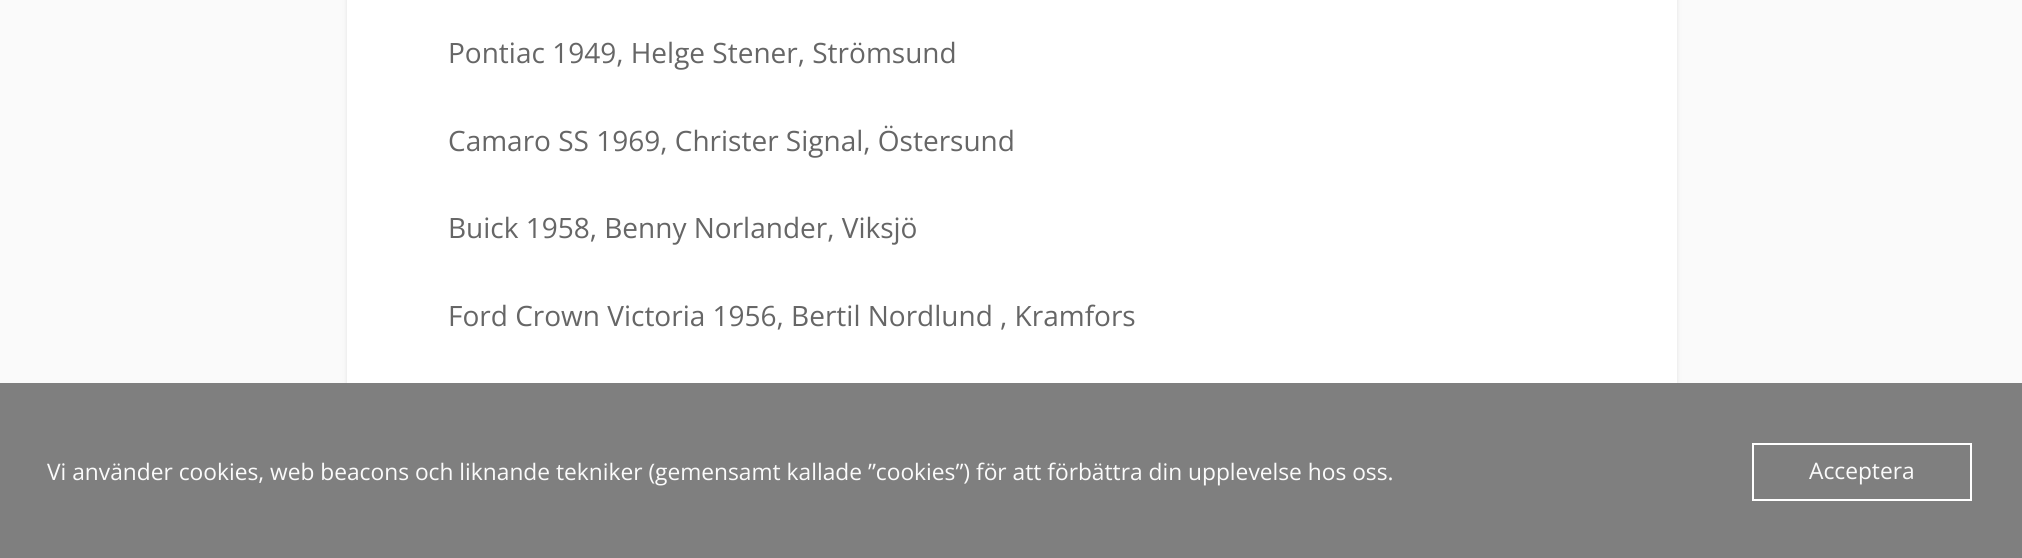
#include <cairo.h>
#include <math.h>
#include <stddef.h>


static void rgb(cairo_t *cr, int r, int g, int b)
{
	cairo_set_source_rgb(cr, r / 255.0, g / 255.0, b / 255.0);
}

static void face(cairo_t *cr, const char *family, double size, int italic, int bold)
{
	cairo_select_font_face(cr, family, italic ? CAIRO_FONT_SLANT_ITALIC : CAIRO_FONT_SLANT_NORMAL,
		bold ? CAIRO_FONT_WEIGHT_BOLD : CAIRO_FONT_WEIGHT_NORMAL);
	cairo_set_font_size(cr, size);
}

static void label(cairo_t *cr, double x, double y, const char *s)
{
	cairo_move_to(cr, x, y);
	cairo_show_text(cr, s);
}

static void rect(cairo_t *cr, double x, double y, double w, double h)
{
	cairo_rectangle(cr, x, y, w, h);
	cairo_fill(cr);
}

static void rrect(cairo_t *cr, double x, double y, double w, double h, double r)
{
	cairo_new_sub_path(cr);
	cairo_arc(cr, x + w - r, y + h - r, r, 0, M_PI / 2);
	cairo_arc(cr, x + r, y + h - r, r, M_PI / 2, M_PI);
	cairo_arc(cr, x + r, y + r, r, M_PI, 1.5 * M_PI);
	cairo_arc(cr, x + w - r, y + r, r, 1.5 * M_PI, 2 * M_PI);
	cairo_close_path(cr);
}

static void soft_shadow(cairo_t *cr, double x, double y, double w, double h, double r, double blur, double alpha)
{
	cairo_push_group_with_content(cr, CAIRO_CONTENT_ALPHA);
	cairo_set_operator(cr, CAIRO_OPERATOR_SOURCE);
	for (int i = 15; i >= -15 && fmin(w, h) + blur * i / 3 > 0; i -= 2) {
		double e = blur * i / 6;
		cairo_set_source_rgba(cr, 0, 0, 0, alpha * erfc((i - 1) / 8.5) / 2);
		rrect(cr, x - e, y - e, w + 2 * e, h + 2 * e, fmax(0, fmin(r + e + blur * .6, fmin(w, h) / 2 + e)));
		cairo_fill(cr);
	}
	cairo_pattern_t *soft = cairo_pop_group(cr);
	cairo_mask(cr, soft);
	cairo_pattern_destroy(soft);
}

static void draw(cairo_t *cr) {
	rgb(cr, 250, 250, 250);
	cairo_paint(cr);
	rgb(cr, 0, 0, 0);
	soft_shadow(cr, 347, -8, 1330, 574, 0, 2.5, 0.09);
	rgb(cr, 255, 255, 255);
	rect(cr, 347, 0, 1330, 558);
	face(cr, "Open Sans", 28, 0, 0);
	rgb(cr, 102, 102, 102);
	label(cr, 448, 63, "Pontiac 1949, Helge Stener, Strömsund");
	label(cr, 448, 151, "Camaro SS 1969, Christer Signal, Östersund");
	label(cr, 448, 238, "Buick 1958, Benny Norlander, Viksjö");
	label(cr, 448, 326, "Ford Crown Victoria 1956, Bertil Nordlund , Kramfors");
	cairo_set_source_rgba(cr, 0.486, 0.486, 0.486, 0.97);
	rect(cr, 0, 383, 2022, 175);
	face(cr, "Open Sans", 22.75, 0, 0);
	rgb(cr, 251, 251, 251);
	label(cr, 47, 480, "Vi använder cookies, web beacons och liknande tekniker (gemensamt kallade ”cookies”) för att förbättra din upplevelse hos oss.");
	cairo_rectangle(cr, 1753, 444, 218, 56);
	rgb(cr, 255, 255, 255);
	cairo_stroke(cr);
	rgb(cr, 251, 251, 251);
	label(cr, 1809, 479, "Acceptera");
}

int main(void) {
	cairo_surface_t *surface = cairo_image_surface_create(CAIRO_FORMAT_RGB24, 2022, 558);
	cairo_t *cr = cairo_create(surface);
	cairo_font_options_t *options = cairo_font_options_create();
	cairo_font_options_set_hint_metrics(options, CAIRO_HINT_METRICS_OFF);
	cairo_font_options_set_hint_style(options, CAIRO_HINT_STYLE_NONE);
	cairo_set_font_options(cr, options);
	cairo_set_miter_limit(cr, 4);
	draw(cr);
	cairo_surface_write_to_png(surface, "render.png");
	cairo_font_options_destroy(options);
	cairo_destroy(cr);
	cairo_surface_destroy(surface);
	return 0;
}
